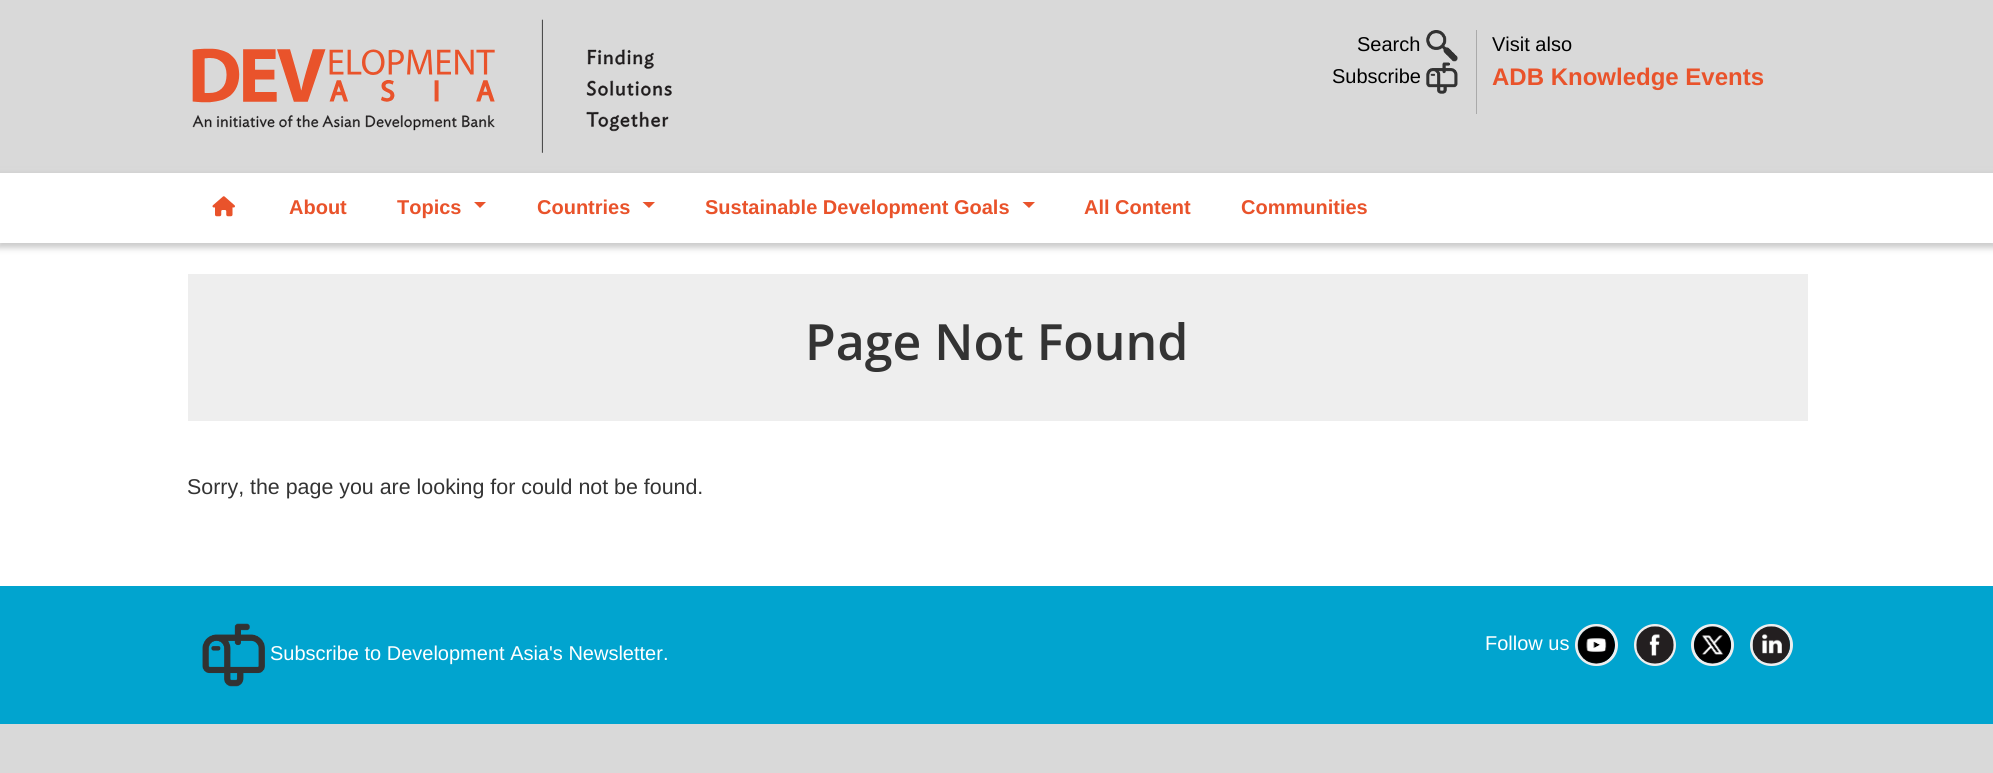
#include <cairo.h>
#include <math.h>
#include <stddef.h>


static void rgb(cairo_t *cr, int r, int g, int b)
{
	cairo_set_source_rgb(cr, r / 255.0, g / 255.0, b / 255.0);
}

static void face(cairo_t *cr, const char *family, double size, int italic, int bold)
{
	cairo_select_font_face(cr, family, italic ? CAIRO_FONT_SLANT_ITALIC : CAIRO_FONT_SLANT_NORMAL,
		bold ? CAIRO_FONT_WEIGHT_BOLD : CAIRO_FONT_WEIGHT_NORMAL);
	cairo_set_font_size(cr, size);
}

static void label(cairo_t *cr, double x, double y, const char *s)
{
	cairo_move_to(cr, x, y);
	cairo_show_text(cr, s);
}

static void rect(cairo_t *cr, double x, double y, double w, double h)
{
	cairo_rectangle(cr, x, y, w, h);
	cairo_fill(cr);
}

static void rrect(cairo_t *cr, double x, double y, double w, double h, double r)
{
	cairo_new_sub_path(cr);
	cairo_arc(cr, x + w - r, y + h - r, r, 0, M_PI / 2);
	cairo_arc(cr, x + r, y + h - r, r, M_PI / 2, M_PI);
	cairo_arc(cr, x + r, y + r, r, M_PI, 1.5 * M_PI);
	cairo_arc(cr, x + w - r, y + r, r, 1.5 * M_PI, 2 * M_PI);
	cairo_close_path(cr);
}

static void soft_shadow(cairo_t *cr, double x, double y, double w, double h, double r, double blur, double alpha)
{
	cairo_push_group_with_content(cr, CAIRO_CONTENT_ALPHA);
	cairo_set_operator(cr, CAIRO_OPERATOR_SOURCE);
	for (int i = 15; i >= -15 && fmin(w, h) + blur * i / 3 > 0; i -= 2) {
		double e = blur * i / 6;
		cairo_set_source_rgba(cr, 0, 0, 0, alpha * erfc((i - 1) / 8.5) / 2);
		rrect(cr, x - e, y - e, w + 2 * e, h + 2 * e, fmax(0, fmin(r + e + blur * .6, fmin(w, h) / 2 + e)));
		cairo_fill(cr);
	}
	cairo_pattern_t *soft = cairo_pop_group(cr);
	cairo_mask(cr, soft);
	cairo_pattern_destroy(soft);
}

static void image(cairo_t *cr, const char *path, double x, double y, double w, double h)
{
	cairo_surface_t *image = cairo_image_surface_create_from_png(path);
	cairo_save(cr);
	cairo_set_source_surface(cr, image, x, y);
	cairo_rectangle(cr, x, y, w, h);
	cairo_fill(cr);
	cairo_restore(cr);
	cairo_surface_destroy(image);
}

static void draw(cairo_t *cr) {
	rgb(cr, 255, 255, 255);
	cairo_paint(cr);
	rgb(cr, 217, 217, 217);
	rect(cr, 0, 0, 1993, 173);
	image(cr, "image0.png", 192, 19, 480, 134);
	rgb(cr, 170, 170, 170);
	rect(cr, 1476, 30, 1, 84);
	face(cr, "Liberation Sans", 20, 0, 0);
	rgb(cr, 0, 0, 0);
	label(cr, 1357, 51, "Search");
	image(cr, "image1.png", 1426, 30, 32, 32);
	label(cr, 1332, 83, "Subscribe");
	image(cr, "image2.png", 1426, 62, 32, 32);
	label(cr, 1492, 51, "Visit also");
	face(cr, "Liberation Sans", 24, 0, 1);
	rgb(cr, 233, 83, 43);
	label(cr, 1492, 85, "ADB Knowledge Events");
	rgb(cr, 204, 204, 204);
	soft_shadow(cr, -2, 173, 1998, 75, 0, 3, 1);
	rgb(cr, 255, 255, 255);
	rect(cr, 0, 173, 1993, 70);
	image(cr, "image3.png", 212, 196, 23, 21);
	face(cr, "Liberation Sans", 20, 0, 1);
	rgb(cr, 233, 83, 43);
	label(cr, 289, 214, "About");
	label(cr, 397, 214, "Topics");
	cairo_new_path(cr);
	cairo_move_to(cr, 474, 202);
	cairo_line_to(cr, 486, 202);
	cairo_line_to(cr, 480, 208);
	cairo_close_path(cr);
	cairo_fill(cr);
	label(cr, 537, 214, "Countries");
	cairo_new_path(cr);
	cairo_move_to(cr, 642.5, 202);
	cairo_line_to(cr, 655, 202);
	cairo_line_to(cr, 649, 208);
	cairo_close_path(cr);
	cairo_fill(cr);
	label(cr, 705, 214, "Sustainable Development Goals");
	cairo_new_path(cr);
	cairo_move_to(cr, 1022.5, 202);
	cairo_line_to(cr, 1035, 202);
	cairo_line_to(cr, 1029, 208);
	cairo_close_path(cr);
	cairo_fill(cr);
	label(cr, 1084, 214, "All Content");
	label(cr, 1241, 214, "Communities");
	rgb(cr, 238, 238, 238);
	rect(cr, 188, 274, 1620, 147);
	face(cr, "Open Sans SemiBold", 50, 0, 0);
	rgb(cr, 51, 51, 51);
	label(cr, 805, 360, "Page Not Found");
	face(cr, "Liberation Sans", 21.4, 0, 0);
	label(cr, 187, 494, "Sorry, the page you are looking for could not be found.");
	rgb(cr, 1, 164, 207);
	rect(cr, 0, 586, 1993, 138);
	face(cr, "Liberation Sans", 20, 0, 0);
	rgb(cr, 255, 255, 255);
	label(cr, 1485, 650, "Follow us");
	rrect(cr, 1576.5, 625.5, 40, 39, 19.5);
	rgb(cr, 238, 238, 238);
	cairo_set_line_width(cr, 3);
	cairo_stroke(cr);
	image(cr, "image4.png", 1577, 626, 38, 38);
	cairo_arc(cr, 1655, 645, 19.5, 0, 2 * M_PI);
	cairo_stroke(cr);
	image(cr, "image5.png", 1636, 626, 38, 38);
	rrect(cr, 1692.5, 625.5, 40, 39, 19.5);
	cairo_stroke(cr);
	image(cr, "image6.png", 1693, 626, 39, 38);
	rrect(cr, 1751.5, 625.5, 40, 39, 19.5);
	cairo_stroke(cr);
	image(cr, "image7.png", 1752, 626, 38, 38);
	image(cr, "image8.png", 202, 623, 63, 64);
	rgb(cr, 255, 255, 255);
	label(cr, 270, 660, "Subscribe to Development Asia's Newsletter.");
	rgb(cr, 217, 217, 217);
	rect(cr, 0, 724, 1993, 49);
}

int main(void) {
	cairo_surface_t *surface = cairo_image_surface_create(CAIRO_FORMAT_RGB24, 1993, 773);
	cairo_t *cr = cairo_create(surface);
	cairo_font_options_t *options = cairo_font_options_create();
	cairo_font_options_set_hint_metrics(options, CAIRO_HINT_METRICS_OFF);
	cairo_font_options_set_hint_style(options, CAIRO_HINT_STYLE_NONE);
	cairo_set_font_options(cr, options);
	cairo_set_miter_limit(cr, 4);
	draw(cr);
	cairo_surface_write_to_png(surface, "render.png");
	cairo_font_options_destroy(options);
	cairo_destroy(cr);
	cairo_surface_destroy(surface);
	return 0;
}
